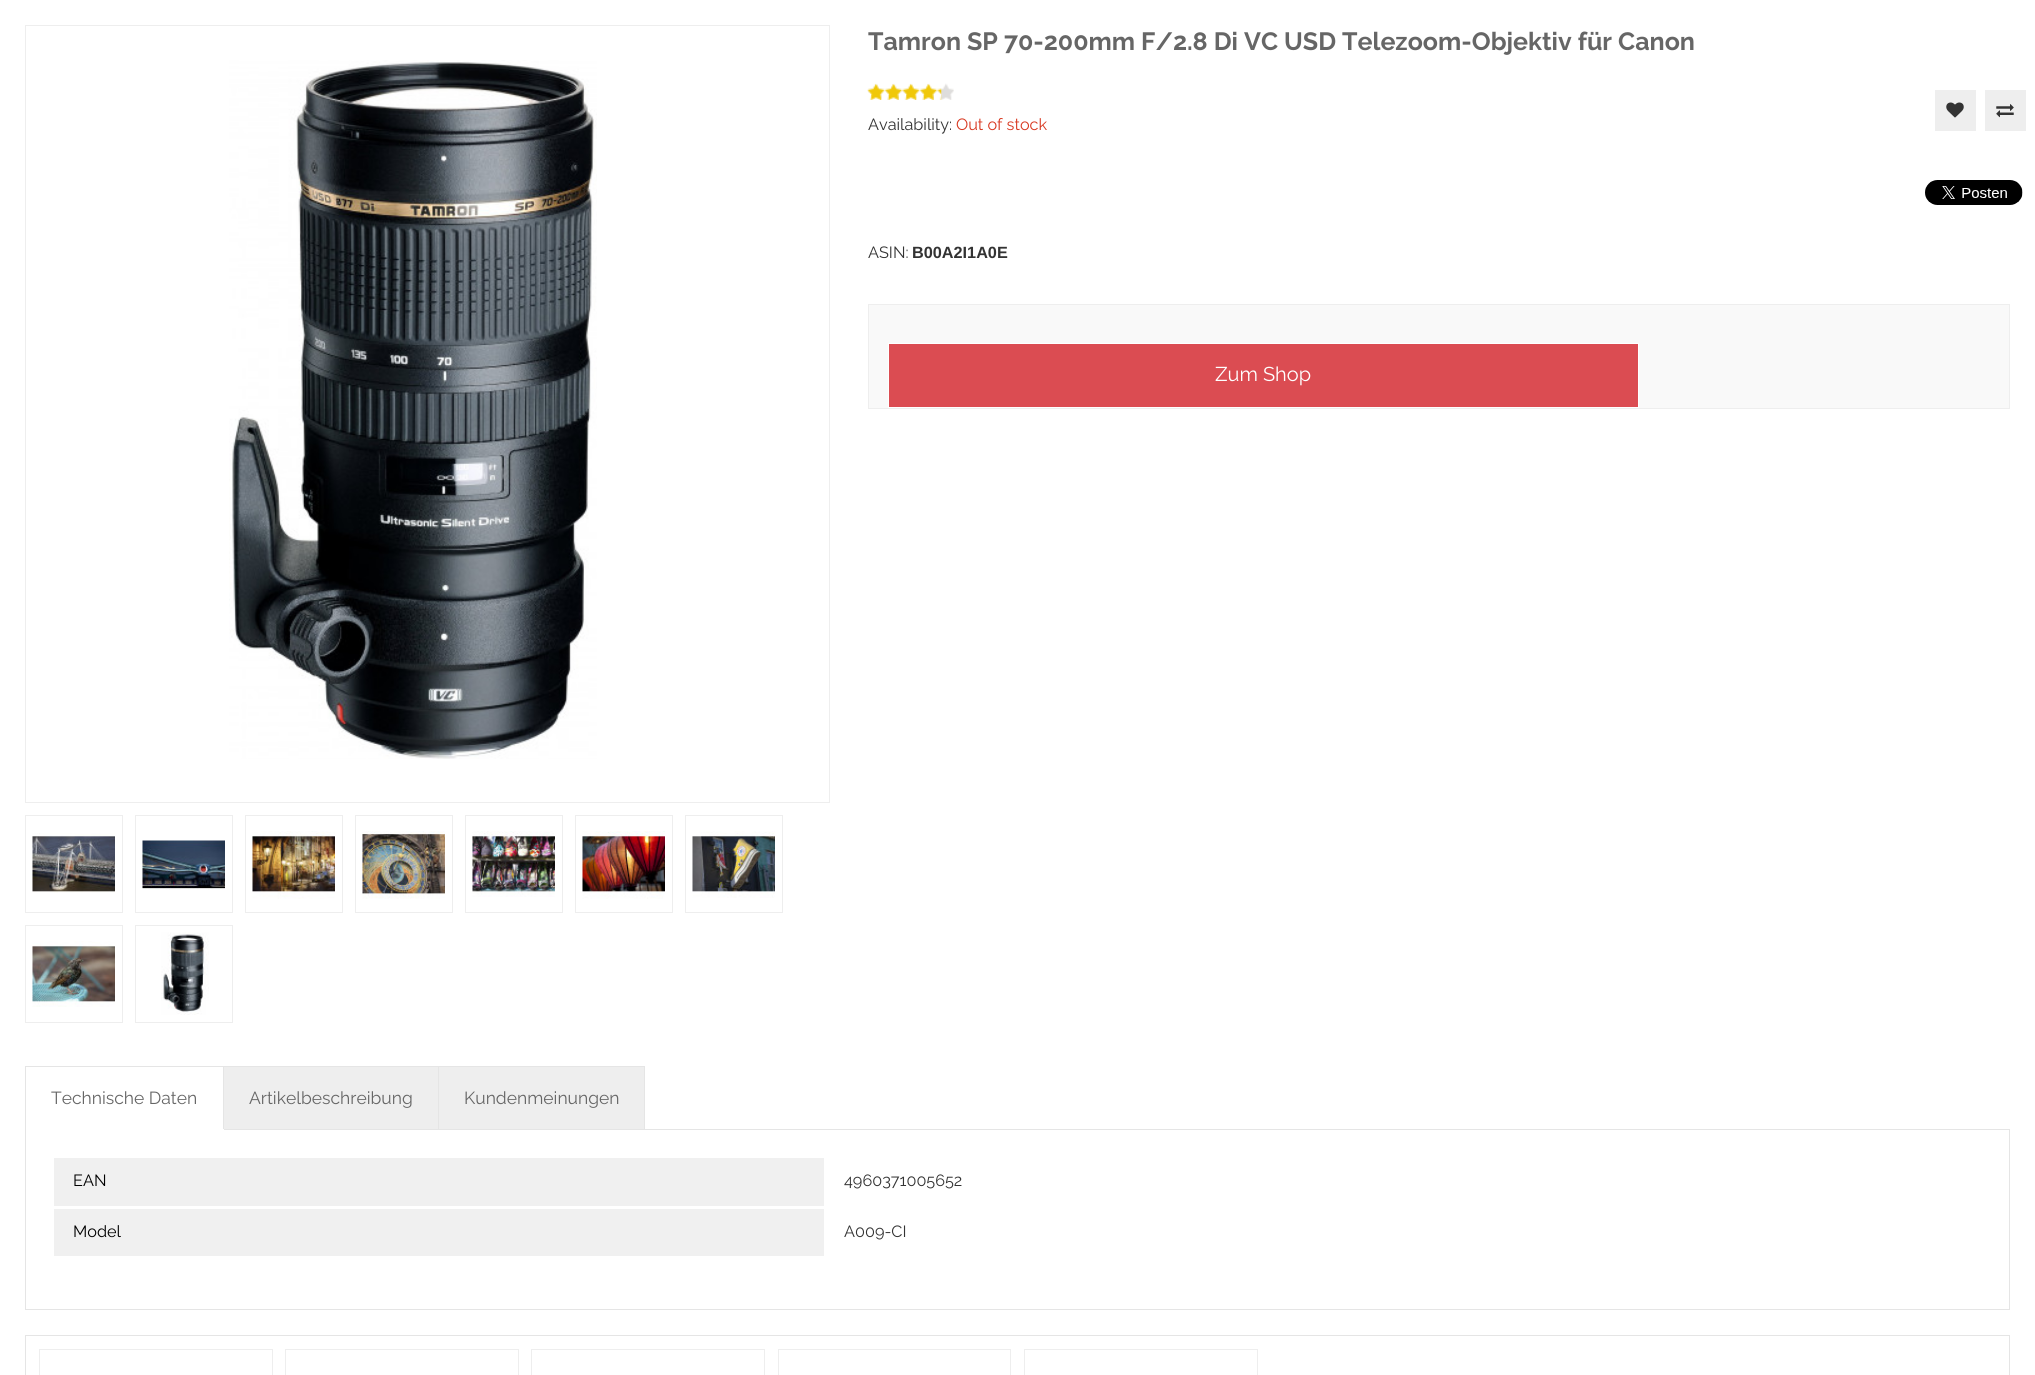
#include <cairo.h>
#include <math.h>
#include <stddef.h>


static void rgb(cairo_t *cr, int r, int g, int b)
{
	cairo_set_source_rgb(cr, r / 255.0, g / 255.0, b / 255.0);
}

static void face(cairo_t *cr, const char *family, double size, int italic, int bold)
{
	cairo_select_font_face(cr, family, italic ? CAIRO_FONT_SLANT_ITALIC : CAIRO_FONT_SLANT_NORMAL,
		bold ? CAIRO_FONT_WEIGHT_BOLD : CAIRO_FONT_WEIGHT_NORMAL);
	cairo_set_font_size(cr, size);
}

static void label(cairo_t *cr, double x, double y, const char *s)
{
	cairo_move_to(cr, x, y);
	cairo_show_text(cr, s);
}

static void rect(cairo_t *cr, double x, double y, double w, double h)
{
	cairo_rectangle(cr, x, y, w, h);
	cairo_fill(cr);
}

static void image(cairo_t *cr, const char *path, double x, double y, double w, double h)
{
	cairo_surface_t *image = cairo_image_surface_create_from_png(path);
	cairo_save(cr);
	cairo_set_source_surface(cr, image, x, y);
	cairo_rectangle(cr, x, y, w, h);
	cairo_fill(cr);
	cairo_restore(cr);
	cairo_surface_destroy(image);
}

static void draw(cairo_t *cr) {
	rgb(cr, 255, 255, 255);
	cairo_paint(cr);
	cairo_rectangle(cr, 25.5, 25.5, 804, 777);
	rgb(cr, 238, 238, 238);
	cairo_set_line_width(cr, 1);
	cairo_stroke(cr);
	image(cr, "image0.png", 229, 60, 368, 699);
	cairo_rectangle(cr, 25.5, 815.5, 97, 97);
	cairo_stroke(cr);
	image(cr, "image1.png", 32, 833, 83, 60);
	cairo_rectangle(cr, 135.5, 815.5, 97, 97);
	cairo_stroke(cr);
	image(cr, "image2.png", 142, 840, 83, 50);
	cairo_rectangle(cr, 245.5, 815.5, 97, 97);
	cairo_stroke(cr);
	image(cr, "image3.png", 252, 831, 83, 68);
	cairo_rectangle(cr, 355.5, 815.5, 97, 97);
	cairo_stroke(cr);
	image(cr, "image4.png", 362, 831, 83, 68);
	cairo_rectangle(cr, 465.5, 815.5, 97, 97);
	cairo_stroke(cr);
	image(cr, "image5.png", 472, 831, 83, 66);
	cairo_rectangle(cr, 575.5, 815.5, 97, 97);
	cairo_stroke(cr);
	image(cr, "image6.png", 582, 831, 83, 68);
	cairo_rectangle(cr, 685.5, 815.5, 97, 97);
	cairo_stroke(cr);
	image(cr, "image7.png", 692, 831, 83, 67);
	cairo_rectangle(cr, 25.5, 925.5, 97, 97);
	cairo_stroke(cr);
	image(cr, "image8.png", 32, 941, 83, 66);
	cairo_rectangle(cr, 135.5, 925.5, 97, 97);
	cairo_stroke(cr);
	image(cr, "image9.png", 161, 932, 48, 83);
	face(cr, "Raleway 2 Thin", 25, 0, 0);
	rgb(cr, 102, 102, 102);
	label(cr, 868, 50, "Tamron SP 70-200mm F/2.8 Di VC USD Telezoom-Objektiv für Canon");
	image(cr, "image10.png", 867, 83, 87, 17);
	image(cr, "image11.png", 867, 84, 75, 16);
	rgb(cr, 238, 238, 238);
	rect(cr, 1935, 90, 41, 41);
	image(cr, "image12.png", 1946, 102, 18, 16);
	rect(cr, 1985, 90, 41, 41);
	image(cr, "image13.png", 1996, 104, 18, 14);
	face(cr, "Raleway Thin", 16.25, 0, 0);
	rgb(cr, 51, 51, 51);
	label(cr, 868, 130, "Availability:");
	rgb(cr, 216, 56, 32);
	label(cr, 956, 130, "Out of stock");
	image(cr, "image14.png", 1925, 180, 98, 25);
	rgb(cr, 51, 51, 51);
	label(cr, 868, 258, "ASIN:");
	face(cr, "Liberation Sans", 16.25, 0, 1);
	label(cr, 912, 258, "B00A2I1A0E");
	rgb(cr, 249, 249, 249);
	cairo_rectangle(cr, 868.5, 304.5, 1141, 104);
	cairo_fill_preserve(cr);
	rgb(cr, 238, 238, 238);
	cairo_stroke(cr);
	rgb(cr, 219, 76, 82);
	cairo_rectangle(cr, 888.5, 343.5, 750, 64);
	cairo_fill_preserve(cr);
	rgb(cr, 255, 255, 255);
	cairo_stroke(cr);
	face(cr, "Raleway Thin", 20, 0, 0);
	label(cr, 1215, 381, "Zum Shop");
	rgb(cr, 229, 229, 229);
	rect(cr, 25, 1066, 620, 1);
	cairo_rectangle(cr, 25.5, 1129.5, 1984, 180);
	cairo_stroke(cr);
	rect(cr, 223, 1066, 1, 64);
	rgb(cr, 255, 255, 255);
	rect(cr, 25, 1129, 199, 1);
	rgb(cr, 229, 229, 229);
	rect(cr, 25, 1066, 1, 64);
	face(cr, "Raleway Thin", 17.5, 0, 0);
	rgb(cr, 102, 102, 102);
	label(cr, 51, 1104, "Technische Daten");
	rgb(cr, 238, 238, 238);
	rect(cr, 224, 1067, 214, 62);
	rgb(cr, 229, 229, 229);
	rect(cr, 438, 1066, 1, 64);
	rgb(cr, 102, 102, 102);
	label(cr, 249, 1104, "Artikelbeschreibung");
	rgb(cr, 238, 238, 238);
	rect(cr, 439, 1067, 205, 62);
	rgb(cr, 229, 229, 229);
	rect(cr, 644, 1066, 1, 64);
	rgb(cr, 102, 102, 102);
	label(cr, 464, 1104, "Kundenmeinungen");
	rgb(cr, 240, 240, 240);
	rect(cr, 54, 1158, 770, 48);
	face(cr, "Raleway Thin", 16.25, 0, 0);
	rgb(cr, 0, 0, 0);
	label(cr, 73, 1186, "EAN");
	rgb(cr, 51, 51, 51);
	label(cr, 844, 1186, "4960371005652");
	rgb(cr, 240, 240, 240);
	rect(cr, 54, 1209, 770, 47);
	rgb(cr, 0, 0, 0);
	label(cr, 73, 1237, "Model");
	rgb(cr, 51, 51, 51);
	label(cr, 844, 1237, "A009-CI");
	cairo_rectangle(cr, 25.5, 1335.5, 1984, 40);
	rgb(cr, 229, 229, 229);
	cairo_stroke(cr);
	cairo_rectangle(cr, 39.5, 1349.5, 233, 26);
	rgb(cr, 238, 238, 238);
	cairo_stroke(cr);
	cairo_rectangle(cr, 285.5, 1349.5, 233, 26);
	cairo_stroke(cr);
	cairo_rectangle(cr, 531.5, 1349.5, 233, 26);
	cairo_stroke(cr);
	cairo_rectangle(cr, 778.5, 1349.5, 232, 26);
	cairo_stroke(cr);
	cairo_rectangle(cr, 1024.5, 1349.5, 233, 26);
	cairo_stroke(cr);
}

int main(void) {
	cairo_surface_t *surface = cairo_image_surface_create(CAIRO_FORMAT_RGB24, 2035, 1375);
	cairo_t *cr = cairo_create(surface);
	cairo_font_options_t *options = cairo_font_options_create();
	cairo_font_options_set_hint_metrics(options, CAIRO_HINT_METRICS_OFF);
	cairo_font_options_set_hint_style(options, CAIRO_HINT_STYLE_NONE);
	cairo_set_font_options(cr, options);
	cairo_set_miter_limit(cr, 4);
	draw(cr);
	cairo_surface_write_to_png(surface, "render.png");
	cairo_font_options_destroy(options);
	cairo_destroy(cr);
	cairo_surface_destroy(surface);
	return 0;
}
